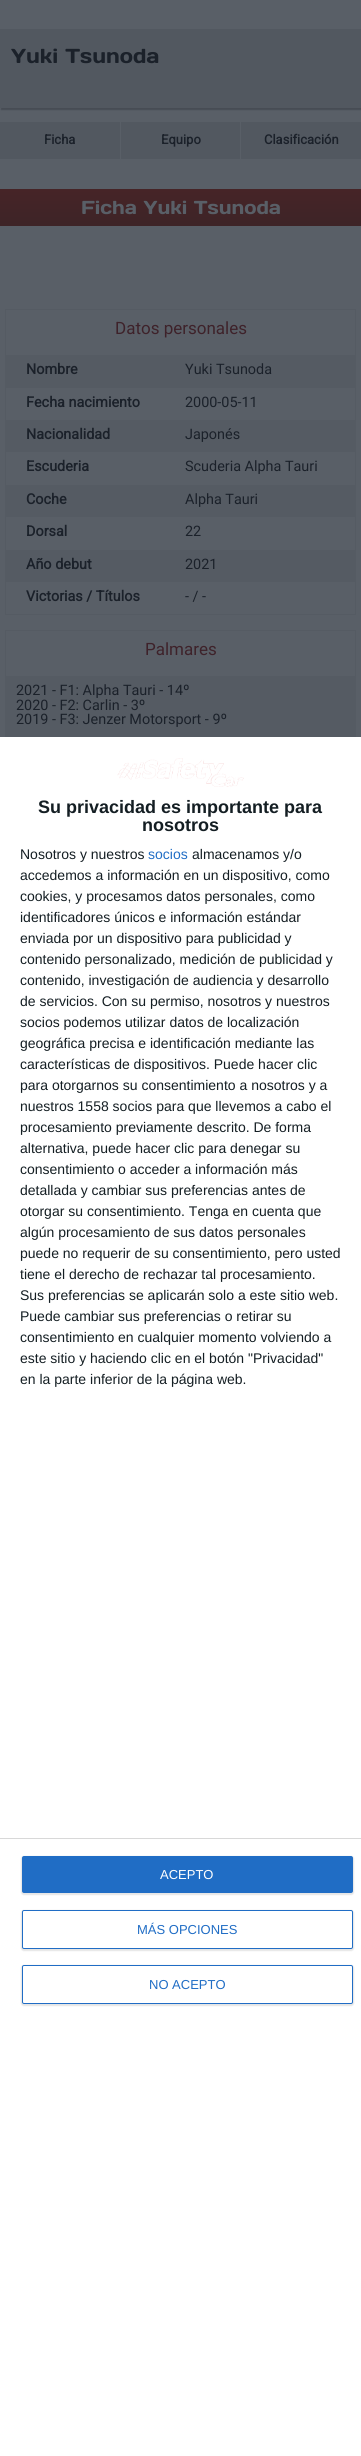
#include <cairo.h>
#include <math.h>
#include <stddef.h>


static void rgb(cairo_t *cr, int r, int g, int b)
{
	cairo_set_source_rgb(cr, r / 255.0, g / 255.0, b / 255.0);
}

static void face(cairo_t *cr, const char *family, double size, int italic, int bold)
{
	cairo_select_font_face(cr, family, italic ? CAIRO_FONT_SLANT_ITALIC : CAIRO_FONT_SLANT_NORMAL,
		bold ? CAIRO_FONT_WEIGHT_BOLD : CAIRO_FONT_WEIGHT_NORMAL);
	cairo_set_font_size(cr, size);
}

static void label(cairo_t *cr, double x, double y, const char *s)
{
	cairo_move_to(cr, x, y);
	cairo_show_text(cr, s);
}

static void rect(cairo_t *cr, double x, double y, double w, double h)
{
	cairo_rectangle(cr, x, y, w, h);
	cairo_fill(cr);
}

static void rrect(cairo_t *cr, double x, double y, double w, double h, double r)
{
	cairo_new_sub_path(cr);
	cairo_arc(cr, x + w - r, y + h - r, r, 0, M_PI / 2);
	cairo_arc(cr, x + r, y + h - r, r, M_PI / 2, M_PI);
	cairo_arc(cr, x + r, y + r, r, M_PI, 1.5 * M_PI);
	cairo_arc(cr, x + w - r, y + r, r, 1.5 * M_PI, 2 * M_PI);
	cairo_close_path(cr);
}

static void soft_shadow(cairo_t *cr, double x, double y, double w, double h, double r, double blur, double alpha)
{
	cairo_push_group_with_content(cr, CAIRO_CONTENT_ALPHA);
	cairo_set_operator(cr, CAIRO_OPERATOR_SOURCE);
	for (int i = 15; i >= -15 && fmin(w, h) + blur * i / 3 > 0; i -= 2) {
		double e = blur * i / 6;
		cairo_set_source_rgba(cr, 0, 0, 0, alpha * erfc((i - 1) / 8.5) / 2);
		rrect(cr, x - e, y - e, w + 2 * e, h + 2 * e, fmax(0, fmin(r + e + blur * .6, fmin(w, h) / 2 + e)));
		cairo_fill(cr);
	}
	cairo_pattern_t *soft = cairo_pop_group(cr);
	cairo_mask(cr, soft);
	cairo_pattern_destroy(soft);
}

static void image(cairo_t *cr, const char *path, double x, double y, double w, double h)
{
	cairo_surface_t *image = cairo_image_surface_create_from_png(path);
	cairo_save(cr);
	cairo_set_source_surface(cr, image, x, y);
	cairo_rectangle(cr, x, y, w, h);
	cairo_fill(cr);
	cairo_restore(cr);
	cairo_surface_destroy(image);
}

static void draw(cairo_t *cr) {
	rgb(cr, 89, 95, 103);
	cairo_paint(cr);
	rgb(cr, 71, 76, 84);
	soft_shadow(cr, 1, 31, 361, 79, 0, 0.5, 1);
	rgb(cr, 82, 88, 96);
	rect(cr, 0, 29, 361, 79);
	face(cr, "Days One", 20.25, 0, 0);
	rgb(cr, 27, 33, 42);
	label(cr, 11, 63, "Yuki Tsunoda");
	rgb(cr, 82, 88, 96);
	rect(cr, 0, 122, 120, 37);
	face(cr, "Roboto", 13, 0, 1);
	rgb(cr, 27, 33, 42);
	label(cr, 44, 144, "Ficha");
	rgb(cr, 82, 88, 96);
	rect(cr, 121, 122, 119, 37);
	rgb(cr, 27, 33, 42);
	label(cr, 161, 144, "Equipo");
	rgb(cr, 82, 88, 96);
	rect(cr, 241, 122, 120, 37);
	rgb(cr, 27, 33, 42);
	label(cr, 264, 144, "Clasificación");
	image(cr, "image0.png", 0, 189, 361, 37);
	face(cr, "Days One", 18.75, 0, 0);
	rgb(cr, 89, 95, 103);
	label(cr, 81, 214, "Ficha Yuki Tsunoda");
	rgb(cr, 85, 91, 99);
	rect(cr, 5, 309, 351, 1);
	rect(cr, 355, 309, 1, 306);
	rect(cr, 5, 614, 351, 1);
	rect(cr, 5, 309, 1, 306);
	face(cr, "Roboto", 17, 0, 0);
	rgb(cr, 62, 34, 42);
	label(cr, 115, 334, "Datos personales");
	rgb(cr, 85, 91, 99);
	rect(cr, 6, 355, 349, 33);
	face(cr, "Roboto", 14.4, 0, 1);
	rgb(cr, 27, 33, 42);
	label(cr, 26, 374, "Nombre");
	face(cr, "Roboto", 14.4, 0, 0);
	label(cr, 185, 374, "Yuki Tsunoda");
	face(cr, "Roboto", 14.4, 0, 1);
	label(cr, 26, 407, "Fecha nacimiento");
	face(cr, "Roboto", 14.4, 0, 0);
	label(cr, 185, 407, "2000-05-11");
	rgb(cr, 85, 91, 99);
	rect(cr, 6, 420, 349, 32);
	face(cr, "Roboto", 14.4, 0, 1);
	rgb(cr, 27, 33, 42);
	label(cr, 26, 439, "Nacionalidad");
	face(cr, "Roboto", 14.4, 0, 0);
	label(cr, 185, 439, "Japonés");
	face(cr, "Roboto", 14.4, 0, 1);
	label(cr, 26, 471, "Escuderia");
	face(cr, "Roboto", 14.4, 0, 0);
	label(cr, 185, 471, "Scuderia Alpha Tauri");
	rgb(cr, 85, 91, 99);
	rect(cr, 6, 485, 349, 32);
	face(cr, "Roboto", 14.4, 0, 1);
	rgb(cr, 27, 33, 42);
	label(cr, 26, 504, "Coche");
	face(cr, "Roboto", 14.4, 0, 0);
	label(cr, 185, 504, "Alpha Tauri");
	face(cr, "Roboto", 14.4, 0, 1);
	label(cr, 26, 536, "Dorsal");
	face(cr, "Roboto", 14.4, 0, 0);
	label(cr, 185, 536, "22");
	rgb(cr, 85, 91, 99);
	rect(cr, 6, 550, 349, 32);
	face(cr, "Roboto", 14.4, 0, 1);
	rgb(cr, 27, 33, 42);
	label(cr, 26, 569, "Año debut");
	face(cr, "Roboto", 14.4, 0, 0);
	label(cr, 185, 569, "2021");
	face(cr, "Roboto", 14.4, 0, 1);
	label(cr, 26, 601, "Victorias / Títulos");
	face(cr, "Roboto", 14.4, 0, 0);
	label(cr, 185, 601, "- / -");
	rgb(cr, 85, 91, 99);
	rect(cr, 5, 630, 351, 1);
	rect(cr, 355, 630, 1, 109);
	rect(cr, 5, 630, 1, 109);
	face(cr, "Roboto", 17, 0, 0);
	rgb(cr, 62, 34, 42);
	label(cr, 145, 655, "Palmares");
	rgb(cr, 85, 91, 99);
	rect(cr, 6, 676, 349, 61);
	face(cr, "Roboto", 14.4, 0, 0);
	rgb(cr, 27, 33, 42);
	label(cr, 16, 695, "2021 - F1: Alpha Tauri - 14º");
	label(cr, 16, 710, "2020 - F2: Carlin - 3º");
	label(cr, 16, 724, "2019 - F3: Jenzer Motorsport - 9º");
	rgb(cr, 255, 255, 255);
	rect(cr, 0, 737, 361, 1719);
	image(cr, "image1.png", 117, 758, 127, 29);
	face(cr, "Liberation Sans", 18, 0, 1);
	rgb(cr, 20, 30, 35);
	label(cr, 38, 813, "Su privacidad es importante para");
	label(cr, 142, 831, "nosotros");
	face(cr, "Liberation Sans", 14, 0, 0);
	label(cr, 20, 859, "Nosotros y nuestros");
	rgb(cr, 32, 109, 197);
	label(cr, 148, 859, "socios");
	rgb(cr, 20, 30, 35);
	label(cr, 192, 859, "almacenamos y/o");
	label(cr, 20, 880, "accedemos a información en un dispositivo, como");
	label(cr, 20, 901, "cookies, y procesamos datos personales, como");
	label(cr, 20, 922, "identificadores únicos e información estándar");
	label(cr, 20, 943, "enviada por un dispositivo para publicidad y");
	label(cr, 20, 964, "contenido personalizado, medición de publicidad y");
	label(cr, 20, 985, "contenido, investigación de audiencia y desarrollo");
	label(cr, 20, 1006, "de servicios. Con su permiso, nosotros y nuestros");
	label(cr, 20, 1027, "socios podemos utilizar datos de localización");
	label(cr, 20, 1048, "geográfica precisa e identificación mediante las");
	label(cr, 20, 1069, "características de dispositivos. Puede hacer clic");
	label(cr, 20, 1090, "para otorgarnos su consentimiento a nosotros y a");
	label(cr, 20, 1111, "nuestros 1558 socios para que llevemos a cabo el");
	label(cr, 20, 1132, "procesamiento previamente descrito. De forma");
	label(cr, 20, 1153, "alternativa, puede hacer clic para denegar su");
	label(cr, 20, 1174, "consentimiento o acceder a información más");
	label(cr, 20, 1195, "detallada y cambiar sus preferencias antes de");
	label(cr, 20, 1216, "otorgar su consentimiento. Tenga en cuenta que");
	label(cr, 20, 1237, "algún procesamiento de sus datos personales");
	label(cr, 20, 1258, "puede no requerir de su consentimiento, pero usted");
	label(cr, 20, 1279, "tiene el derecho de rechazar tal procesamiento.");
	label(cr, 20, 1300, "Sus preferencias se aplicarán solo a este sitio web.");
	label(cr, 20, 1321, "Puede cambiar sus preferencias o retirar su");
	label(cr, 20, 1342, "consentimiento en cualquier momento volviendo a");
	label(cr, 20, 1363, "este sitio y haciendo clic en el botón \"Privacidad\"");
	label(cr, 20, 1384, "en la parte inferior de la página web.");
	rgb(cr, 216, 216, 216);
	rect(cr, 0, 1838, 361, 1);
	rgb(cr, 0, 0, 0);
	soft_shadow(cr, 21, 1856, 333, 39, 3, 0.5, 0.1);
	rgb(cr, 32, 109, 197);
	rrect(cr, 22, 1856, 331, 37, 2);
	cairo_fill(cr);
	face(cr, "Liberation Sans", 13, 0, 0);
	rgb(cr, 255, 255, 255);
	label(cr, 160, 1879, "ACEPTO");
	rgb(cr, 0, 0, 0);
	soft_shadow(cr, 21, 1910, 333, 41, 3, 0.5, 0.1);
	rgb(cr, 255, 255, 255);
	rrect(cr, 22.5, 1910.5, 330, 38, 1.5);
	cairo_fill_preserve(cr);
	rgb(cr, 32, 109, 197);
	cairo_set_line_width(cr, 1);
	cairo_stroke(cr);
	label(cr, 137, 1934, "MÁS OPCIONES");
	rgb(cr, 0, 0, 0);
	soft_shadow(cr, 21, 1965, 333, 41, 3, 0.5, 0.1);
	rgb(cr, 255, 255, 255);
	rrect(cr, 22.5, 1965.5, 330, 38, 1.5);
	cairo_fill_preserve(cr);
	rgb(cr, 32, 109, 197);
	cairo_stroke(cr);
	label(cr, 149, 1989, "NO ACEPTO");
}

int main(void) {
	cairo_surface_t *surface = cairo_image_surface_create(CAIRO_FORMAT_RGB24, 361, 2456);
	cairo_t *cr = cairo_create(surface);
	cairo_font_options_t *options = cairo_font_options_create();
	cairo_font_options_set_hint_metrics(options, CAIRO_HINT_METRICS_OFF);
	cairo_font_options_set_hint_style(options, CAIRO_HINT_STYLE_NONE);
	cairo_set_font_options(cr, options);
	cairo_set_miter_limit(cr, 4);
	draw(cr);
	cairo_surface_write_to_png(surface, "render.png");
	cairo_font_options_destroy(options);
	cairo_destroy(cr);
	cairo_surface_destroy(surface);
	return 0;
}
